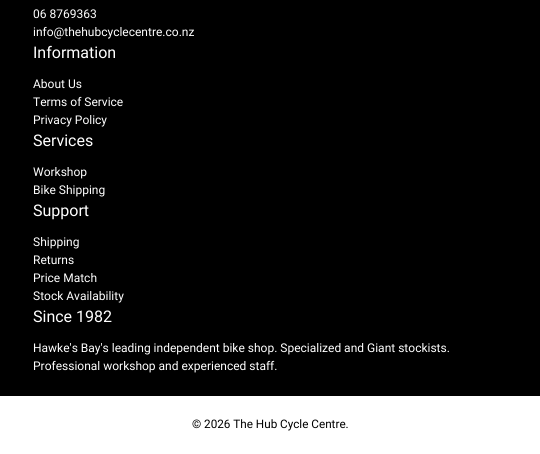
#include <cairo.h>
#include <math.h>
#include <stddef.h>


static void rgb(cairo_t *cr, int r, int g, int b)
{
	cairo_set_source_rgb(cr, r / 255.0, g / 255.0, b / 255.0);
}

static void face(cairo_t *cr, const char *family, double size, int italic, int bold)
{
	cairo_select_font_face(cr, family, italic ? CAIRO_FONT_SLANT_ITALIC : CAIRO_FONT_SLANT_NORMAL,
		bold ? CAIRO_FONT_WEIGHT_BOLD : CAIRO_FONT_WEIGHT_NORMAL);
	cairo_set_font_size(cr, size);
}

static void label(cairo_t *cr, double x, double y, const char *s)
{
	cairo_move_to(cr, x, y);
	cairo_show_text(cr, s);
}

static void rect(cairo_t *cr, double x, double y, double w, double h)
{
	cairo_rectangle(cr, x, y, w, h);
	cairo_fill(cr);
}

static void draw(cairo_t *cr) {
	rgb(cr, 255, 255, 255);
	cairo_paint(cr);
	rgb(cr, 0, 0, 0);
	rect(cr, 0, 0, 540, 396);
	face(cr, "Roboto", 12, 0, 0);
	rgb(cr, 255, 255, 255);
	label(cr, 33, 18, "06 8769363");
	label(cr, 33, 36, "info@thehubcyclecentre.co.nz");
	face(cr, "Roboto", 16, 0, 0);
	label(cr, 33, 58, "Information");
	face(cr, "Roboto", 12, 0, 0);
	label(cr, 33, 88, "About Us");
	label(cr, 33, 106, "Terms of Service");
	label(cr, 33, 124, "Privacy Policy");
	face(cr, "Roboto", 16, 0, 0);
	label(cr, 33, 146, "Services");
	face(cr, "Roboto", 12, 0, 0);
	label(cr, 33, 176, "Workshop");
	label(cr, 33, 194, "Bike Shipping");
	face(cr, "Roboto", 16, 0, 0);
	label(cr, 33, 216, "Support");
	face(cr, "Roboto", 12, 0, 0);
	label(cr, 33, 246, "Shipping");
	label(cr, 33, 264, "Returns");
	label(cr, 33, 282, "Price Match");
	label(cr, 33, 300, "Stock Availability");
	face(cr, "Roboto", 16, 0, 0);
	label(cr, 33, 322, "Since 1982");
	face(cr, "Roboto", 12, 0, 0);
	label(cr, 33, 352, "Hawke's Bay's leading independent bike shop. Specialized and Giant stockists.");
	label(cr, 33, 370, "Professional workshop and experienced staff.");
	face(cr, "Roboto", 11.7, 0, 0);
	rgb(cr, 0, 0, 0);
	label(cr, 192, 428, "© 2026 The Hub Cycle Centre.");
}

int main(void) {
	cairo_surface_t *surface = cairo_image_surface_create(CAIRO_FORMAT_RGB24, 540, 454);
	cairo_t *cr = cairo_create(surface);
	cairo_font_options_t *options = cairo_font_options_create();
	cairo_font_options_set_hint_metrics(options, CAIRO_HINT_METRICS_OFF);
	cairo_font_options_set_hint_style(options, CAIRO_HINT_STYLE_NONE);
	cairo_set_font_options(cr, options);
	cairo_set_miter_limit(cr, 4);
	draw(cr);
	cairo_surface_write_to_png(surface, "render.png");
	cairo_font_options_destroy(options);
	cairo_destroy(cr);
	cairo_surface_destroy(surface);
	return 0;
}
